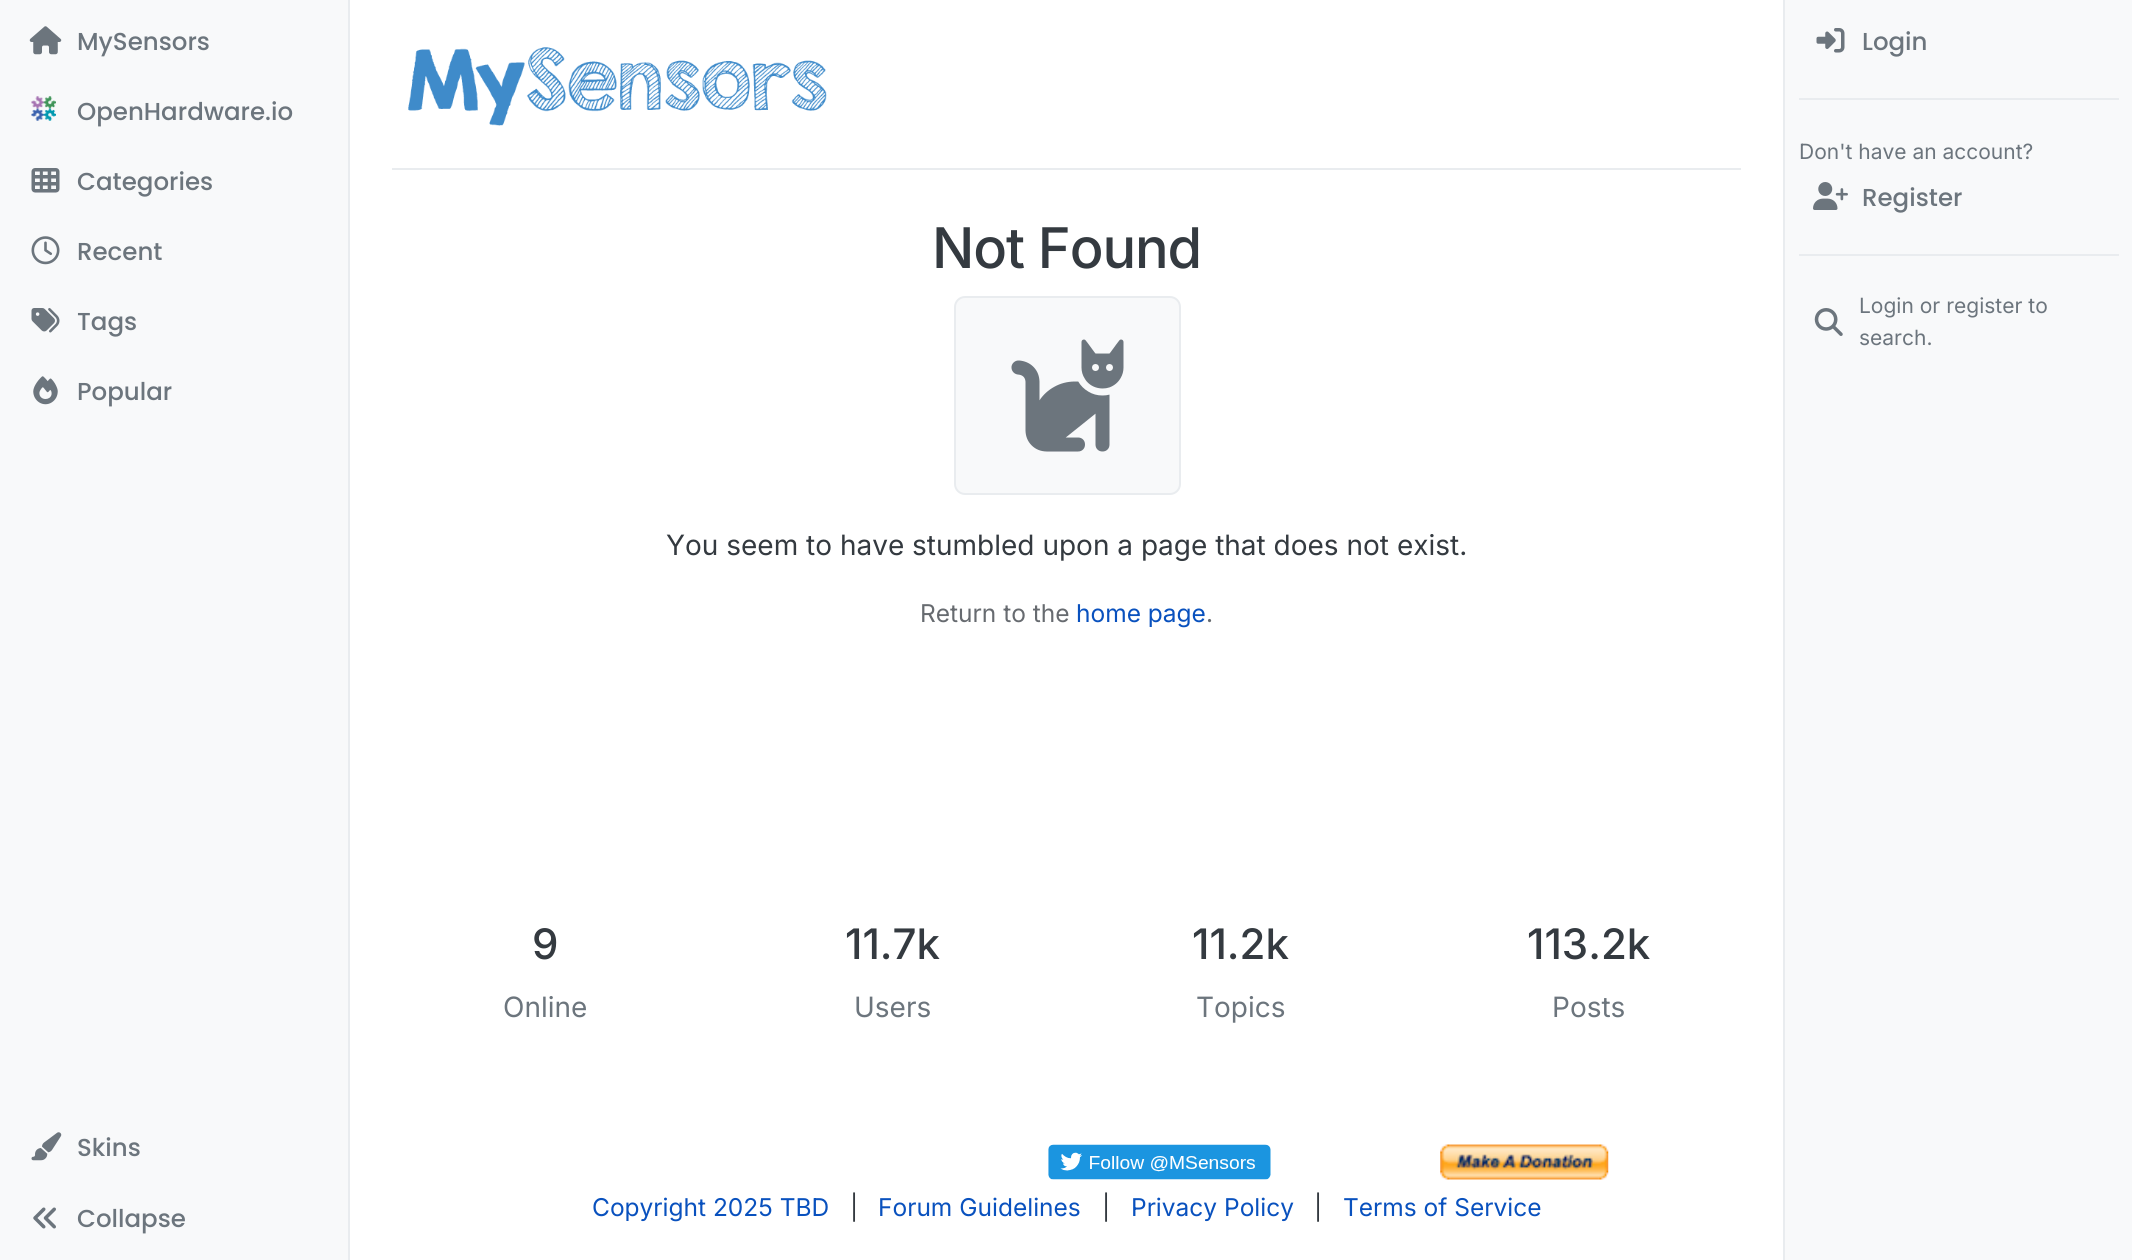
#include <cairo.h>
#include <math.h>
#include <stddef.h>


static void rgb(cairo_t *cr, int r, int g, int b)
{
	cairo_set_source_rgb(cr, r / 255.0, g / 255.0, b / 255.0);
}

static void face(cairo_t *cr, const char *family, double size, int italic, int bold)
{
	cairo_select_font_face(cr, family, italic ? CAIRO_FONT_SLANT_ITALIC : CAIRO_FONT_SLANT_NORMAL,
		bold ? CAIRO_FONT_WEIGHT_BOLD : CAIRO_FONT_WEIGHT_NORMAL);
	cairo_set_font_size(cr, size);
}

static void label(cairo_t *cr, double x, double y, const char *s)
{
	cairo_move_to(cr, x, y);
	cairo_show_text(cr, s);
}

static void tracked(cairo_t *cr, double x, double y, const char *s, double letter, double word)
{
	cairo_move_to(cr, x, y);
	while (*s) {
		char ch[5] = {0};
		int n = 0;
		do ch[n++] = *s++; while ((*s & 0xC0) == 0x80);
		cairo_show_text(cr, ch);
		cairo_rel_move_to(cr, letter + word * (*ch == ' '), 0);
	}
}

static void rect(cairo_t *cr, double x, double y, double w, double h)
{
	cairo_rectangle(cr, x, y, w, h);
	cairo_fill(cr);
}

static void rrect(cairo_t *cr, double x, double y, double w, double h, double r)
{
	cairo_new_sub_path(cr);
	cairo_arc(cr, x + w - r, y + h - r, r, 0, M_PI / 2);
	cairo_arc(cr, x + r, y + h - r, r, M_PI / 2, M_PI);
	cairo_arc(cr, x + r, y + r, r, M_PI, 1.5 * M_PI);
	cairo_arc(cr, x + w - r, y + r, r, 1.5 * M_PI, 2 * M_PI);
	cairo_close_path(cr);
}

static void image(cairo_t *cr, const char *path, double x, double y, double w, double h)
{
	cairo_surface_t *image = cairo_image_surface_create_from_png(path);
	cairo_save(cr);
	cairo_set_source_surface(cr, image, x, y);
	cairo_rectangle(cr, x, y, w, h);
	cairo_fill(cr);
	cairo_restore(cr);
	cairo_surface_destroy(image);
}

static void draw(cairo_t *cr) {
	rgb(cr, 255, 255, 255);
	cairo_paint(cr);
	rgb(cr, 248, 249, 250);
	rect(cr, 0, 0, 348, 1260);
	rgb(cr, 233, 236, 239);
	rect(cr, 348, 0, 2, 1260);
	image(cr, "image0.png", 29, 26, 33, 29);
	face(cr, "Poppins Medium", 24.5, 0, 0);
	rgb(cr, 108, 117, 125);
	label(cr, 77, 50, "MySensors");
	image(cr, "image1.png", 31, 96, 25, 25);
	label(cr, 77, 120, "OpenHardware.io");
	image(cr, "image2.png", 31, 168, 29, 25);
	label(cr, 77, 190, "Categories");
	image(cr, "image3.png", 31, 236, 29, 29);
	label(cr, 77, 260, "Recent");
	image(cr, "image4.png", 31, 308, 29, 25);
	label(cr, 77, 330, "Tags");
	image(cr, "image5.png", 33, 376, 25, 29);
	label(cr, 77, 400, "Popular");
	image(cr, "image6.png", 31, 1132, 31, 29);
	label(cr, 77, 1156, "Skins");
	image(cr, "image7.png", 33, 1207, 23, 22);
	label(cr, 77, 1227, "Collapse");
	rgb(cr, 233, 236, 239);
	rect(cr, 392, 168, 1349, 2);
	image(cr, "image8.png", 408, 47, 419, 79);
	face(cr, "Inter Medium", 56, 0, 0);
	rgb(cr, 52, 58, 64);
	tracked(cr, 932, 268, "Not Found", -1.1, 0);
	rgb(cr, 248, 249, 250);
	rrect(cr, 955, 297, 225, 197, 10);
	cairo_fill_preserve(cr);
	rgb(cr, 233, 236, 239);
	cairo_stroke(cr);
	image(cr, "image9.png", 1011, 339, 113, 113);
	face(cr, "Inter", 28, 0, 0);
	rgb(cr, 52, 58, 64);
	label(cr, 666, 555, "You seem to have stumbled upon a page that does not exist.");
	face(cr, "Inter", 24.5, 0, 0);
	rgb(cr, 103, 107, 112);
	label(cr, 920, 622, "Return to the");
	rgb(cr, 9, 81, 190);
	label(cr, 1076, 622, "home page");
	rgb(cr, 103, 107, 112);
	label(cr, 1206, 622, ".");
	face(cr, "Inter Medium", 42, 0, 0);
	rgb(cr, 52, 58, 64);
	label(cr, 532, 959, "9");
	face(cr, "Inter", 28, 0, 0);
	rgb(cr, 108, 117, 125);
	label(cr, 503, 1017, "Online");
	face(cr, "Inter Medium", 42, 0, 0);
	rgb(cr, 52, 58, 64);
	label(cr, 845, 959, "11.7k");
	face(cr, "Inter", 28, 0, 0);
	rgb(cr, 108, 117, 125);
	label(cr, 854, 1017, "Users");
	face(cr, "Inter Medium", 42, 0, 0);
	rgb(cr, 52, 58, 64);
	label(cr, 1192, 959, "11.2k");
	face(cr, "Inter", 28, 0, 0);
	rgb(cr, 108, 117, 125);
	label(cr, 1196, 1017, "Topics");
	face(cr, "Inter Medium", 42, 0, 0);
	rgb(cr, 52, 58, 64);
	label(cr, 1527, 959, "113.2k");
	face(cr, "Inter", 28, 0, 0);
	rgb(cr, 108, 117, 125);
	label(cr, 1552, 1017, "Posts");
	image(cr, "image10.png", 1048, 1144, 223, 36);
	image(cr, "image11.png", 1440, 1144, 169, 36);
	face(cr, "Inter", 24.5, 0, 0);
	rgb(cr, 9, 81, 190);
	label(cr, 592, 1216, "Copyright 2025 TBD");
	rgb(cr, 52, 58, 64);
	label(cr, 850, 1216, "|");
	rgb(cr, 9, 81, 190);
	label(cr, 878, 1216, "Forum Guidelines");
	rgb(cr, 52, 58, 64);
	label(cr, 1102, 1216, "|");
	rgb(cr, 9, 81, 190);
	label(cr, 1131, 1216, "Privacy Policy");
	rgb(cr, 52, 58, 64);
	label(cr, 1314, 1216, "|");
	rgb(cr, 9, 81, 190);
	label(cr, 1343, 1216, "Terms of Service");
	rgb(cr, 248, 249, 250);
	rect(cr, 1785, 0, 347, 1260);
	rgb(cr, 233, 236, 239);
	rect(cr, 1783, 0, 2, 1260);
	image(cr, "image12.png", 1816, 28, 29, 25);
	face(cr, "Poppins Medium", 24.5, 0, 0);
	rgb(cr, 108, 117, 125);
	label(cr, 1862, 50, "Login");
	rgb(cr, 233, 236, 239);
	rect(cr, 1799, 98, 320, 2);
	face(cr, "Inter", 21, 0, 0);
	rgb(cr, 108, 117, 125);
	label(cr, 1799, 159, "Don't have an account?");
	image(cr, "image13.png", 1813, 182, 35, 28);
	face(cr, "Poppins Medium", 24.5, 0, 0);
	label(cr, 1862, 206, "Register");
	rgb(cr, 233, 236, 239);
	rect(cr, 1799, 254, 320, 2);
	image(cr, "image14.png", 1814, 308, 29, 28);
	face(cr, "Inter", 21, 0, 0);
	rgb(cr, 108, 117, 125);
	label(cr, 1859, 313, "Login or register to");
	label(cr, 1859, 345, "search.");
}

int main(void) {
	cairo_surface_t *surface = cairo_image_surface_create(CAIRO_FORMAT_RGB24, 2132, 1260);
	cairo_t *cr = cairo_create(surface);
	cairo_font_options_t *options = cairo_font_options_create();
	cairo_font_options_set_hint_metrics(options, CAIRO_HINT_METRICS_OFF);
	cairo_font_options_set_hint_style(options, CAIRO_HINT_STYLE_NONE);
	cairo_set_font_options(cr, options);
	cairo_set_miter_limit(cr, 4);
	draw(cr);
	cairo_surface_write_to_png(surface, "render.png");
	cairo_font_options_destroy(options);
	cairo_destroy(cr);
	cairo_surface_destroy(surface);
	return 0;
}
